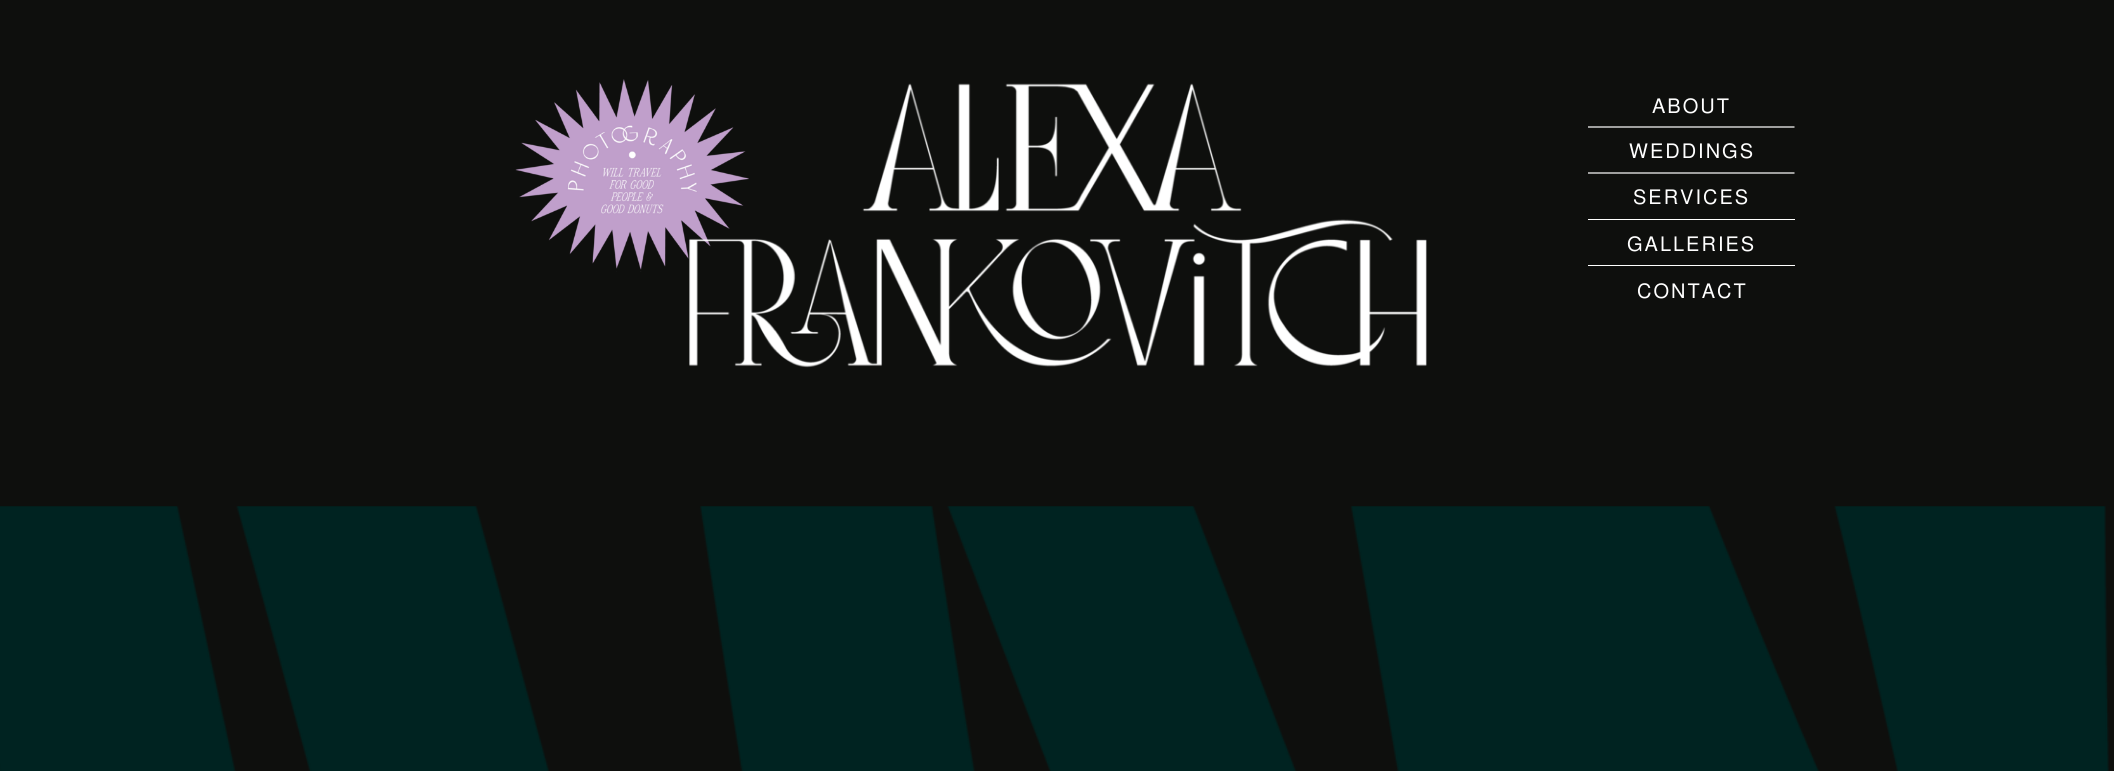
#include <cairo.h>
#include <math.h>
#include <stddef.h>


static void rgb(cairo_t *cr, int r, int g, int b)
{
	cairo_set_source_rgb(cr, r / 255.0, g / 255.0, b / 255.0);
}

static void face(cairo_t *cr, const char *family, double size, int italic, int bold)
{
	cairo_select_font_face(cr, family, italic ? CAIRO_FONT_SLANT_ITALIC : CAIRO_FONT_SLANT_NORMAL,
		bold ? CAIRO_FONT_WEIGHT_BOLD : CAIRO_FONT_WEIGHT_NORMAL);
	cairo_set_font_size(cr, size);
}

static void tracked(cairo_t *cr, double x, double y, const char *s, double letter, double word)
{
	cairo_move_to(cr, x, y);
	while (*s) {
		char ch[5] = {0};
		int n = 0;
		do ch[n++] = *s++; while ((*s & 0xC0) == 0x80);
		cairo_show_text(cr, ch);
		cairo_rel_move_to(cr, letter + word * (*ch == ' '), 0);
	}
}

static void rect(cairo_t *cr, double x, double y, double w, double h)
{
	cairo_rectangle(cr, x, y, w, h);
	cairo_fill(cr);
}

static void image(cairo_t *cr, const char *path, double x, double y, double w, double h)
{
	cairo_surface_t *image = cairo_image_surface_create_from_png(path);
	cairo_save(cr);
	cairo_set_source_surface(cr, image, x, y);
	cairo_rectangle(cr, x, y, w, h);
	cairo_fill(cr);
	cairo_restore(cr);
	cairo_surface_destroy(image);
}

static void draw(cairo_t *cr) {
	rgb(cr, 14, 15, 13);
	cairo_paint(cr);
	image(cr, "image0.png", 515, 79, 234, 193);
	image(cr, "image1.png", 689, 83, 738, 285);
	face(cr, "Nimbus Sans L", 20, 0, 0);
	rgb(cr, 255, 255, 255);
	tracked(cr, 1652, 113, "ABOUT", 2, 0);
	cairo_new_path(cr);
	cairo_move_to(cr, 1588, 127);
	cairo_line_to(cr, 1794.5, 127);
	cairo_set_line_width(cr, 1.2);
	cairo_stroke(cr);
	tracked(cr, 1629, 158, "WEDDINGS", 2, 0);
	cairo_new_path(cr);
	cairo_move_to(cr, 1588, 173);
	cairo_line_to(cr, 1794.5, 173);
	cairo_stroke(cr);
	tracked(cr, 1633, 204, "SERVICES", 2, 0);
	rect(cr, 1588, 219, 207, 1);
	tracked(cr, 1627, 251, "GALLERIES", 2, 0);
	rect(cr, 1588, 265, 207, 1);
	tracked(cr, 1637, 298, "CONTACT", 2, 0);
	image(cr, "image2.png", 0, 506, 2109, 265);
}

int main(void) {
	cairo_surface_t *surface = cairo_image_surface_create(CAIRO_FORMAT_RGB24, 2114, 771);
	cairo_t *cr = cairo_create(surface);
	cairo_font_options_t *options = cairo_font_options_create();
	cairo_font_options_set_hint_metrics(options, CAIRO_HINT_METRICS_OFF);
	cairo_font_options_set_hint_style(options, CAIRO_HINT_STYLE_NONE);
	cairo_set_font_options(cr, options);
	cairo_set_miter_limit(cr, 4);
	draw(cr);
	cairo_surface_write_to_png(surface, "render.png");
	cairo_font_options_destroy(options);
	cairo_destroy(cr);
	cairo_surface_destroy(surface);
	return 0;
}
